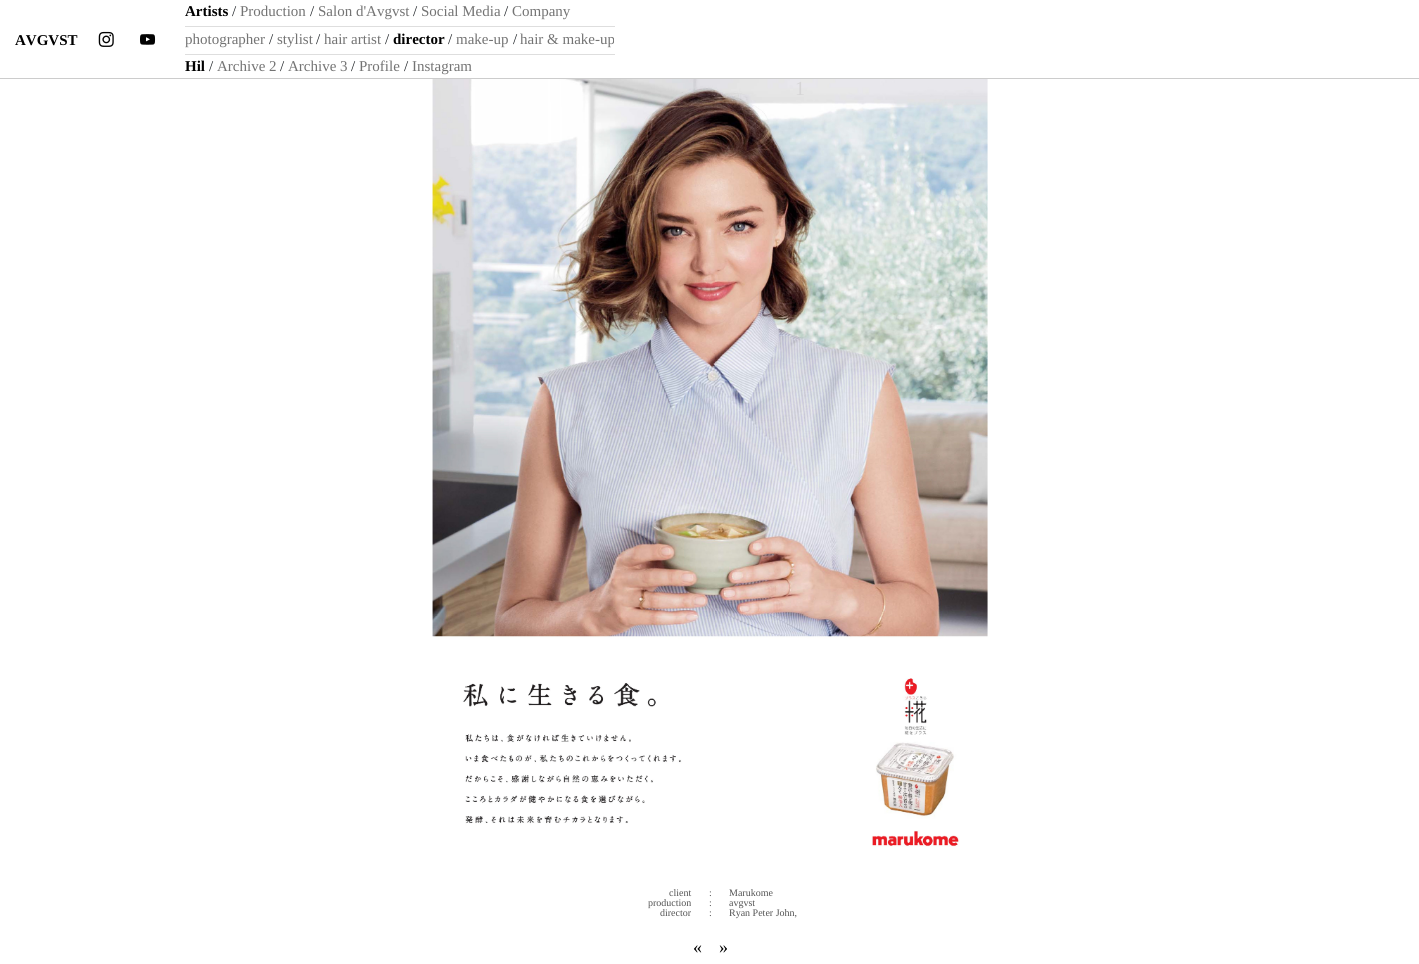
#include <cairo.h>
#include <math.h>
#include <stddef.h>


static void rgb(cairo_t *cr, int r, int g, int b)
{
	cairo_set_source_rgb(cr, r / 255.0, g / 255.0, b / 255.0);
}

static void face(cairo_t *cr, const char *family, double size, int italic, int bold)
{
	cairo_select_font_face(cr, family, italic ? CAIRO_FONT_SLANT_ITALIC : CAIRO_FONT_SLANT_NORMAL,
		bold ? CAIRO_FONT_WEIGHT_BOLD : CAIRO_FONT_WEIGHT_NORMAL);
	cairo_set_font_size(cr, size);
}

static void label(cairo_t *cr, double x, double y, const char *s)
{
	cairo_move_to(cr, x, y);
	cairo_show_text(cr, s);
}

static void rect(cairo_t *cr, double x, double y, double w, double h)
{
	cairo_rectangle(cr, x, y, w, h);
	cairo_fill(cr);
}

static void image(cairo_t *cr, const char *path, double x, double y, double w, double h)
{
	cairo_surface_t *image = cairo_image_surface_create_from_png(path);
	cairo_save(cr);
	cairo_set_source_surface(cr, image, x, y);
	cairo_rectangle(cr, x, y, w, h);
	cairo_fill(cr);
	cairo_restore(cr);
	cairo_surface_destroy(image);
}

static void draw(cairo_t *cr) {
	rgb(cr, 255, 255, 255);
	cairo_paint(cr);
	rgb(cr, 204, 204, 204);
	rect(cr, 0, 78, 1419, 1);
	face(cr, "Liberation Serif", 15, 0, 1);
	rgb(cr, 0, 0, 0);
	label(cr, 15, 45, "AVGVST");
	image(cr, "image0.png", 98, 31, 16, 16);
	image(cr, "image1.png", 140, 34, 16, 11);
	rgb(cr, 222, 222, 222);
	rect(cr, 185, 26, 430, 1);
	rgb(cr, 0, 0, 0);
	label(cr, 185, 16, "Artists");
	face(cr, "Liberation Serif", 15, 0, 0);
	rgb(cr, 33, 37, 41);
	label(cr, 232, 16, "/");
	rgb(cr, 115, 115, 115);
	label(cr, 240, 16, "Production");
	rgb(cr, 33, 37, 41);
	label(cr, 310, 16, "/");
	rgb(cr, 115, 115, 115);
	label(cr, 318, 16, "Salon d'Avgvst");
	rgb(cr, 33, 37, 41);
	label(cr, 413, 16, "/");
	rgb(cr, 115, 115, 115);
	label(cr, 421, 16, "Social Media");
	rgb(cr, 33, 37, 41);
	label(cr, 504, 16, "/");
	rgb(cr, 115, 115, 115);
	label(cr, 512, 16, "Company");
	rgb(cr, 222, 222, 222);
	rect(cr, 185, 54, 430, 1);
	rgb(cr, 115, 115, 115);
	label(cr, 185, 44, "photographer");
	rgb(cr, 33, 37, 41);
	label(cr, 269, 44, "/");
	rgb(cr, 115, 115, 115);
	label(cr, 277, 44, "stylist");
	rgb(cr, 33, 37, 41);
	label(cr, 316, 44, "/");
	rgb(cr, 115, 115, 115);
	label(cr, 324, 44, "hair artist");
	rgb(cr, 33, 37, 41);
	label(cr, 385, 44, "/");
	face(cr, "Liberation Serif", 15, 0, 1);
	rgb(cr, 0, 0, 0);
	label(cr, 393, 44, "director");
	face(cr, "Liberation Serif", 15, 0, 0);
	rgb(cr, 33, 37, 41);
	label(cr, 448, 44, "/");
	rgb(cr, 115, 115, 115);
	label(cr, 456, 44, "make-up");
	rgb(cr, 33, 37, 41);
	label(cr, 513, 44, "/");
	rgb(cr, 115, 115, 115);
	label(cr, 520, 44, "hair & make-up");
	face(cr, "Liberation Serif", 15, 0, 1);
	rgb(cr, 0, 0, 0);
	label(cr, 185, 71, "Hil");
	face(cr, "Liberation Serif", 15, 0, 0);
	rgb(cr, 33, 37, 41);
	label(cr, 209, 71, "/");
	rgb(cr, 115, 115, 115);
	label(cr, 217, 71, "Archive 2");
	rgb(cr, 33, 37, 41);
	label(cr, 280, 71, "/");
	rgb(cr, 115, 115, 115);
	label(cr, 288, 71, "Archive 3");
	rgb(cr, 33, 37, 41);
	label(cr, 351, 71, "/");
	rgb(cr, 115, 115, 115);
	label(cr, 359, 71, "Profile");
	rgb(cr, 33, 37, 41);
	label(cr, 404, 71, "/");
	rgb(cr, 115, 115, 115);
	label(cr, 412, 71, "Instagram");
	image(cr, "image2.png", 432, 79, 556, 768);
	face(cr, "Liberation Serif", 20, 0, 0);
	rgb(cr, 214, 213, 214);
	label(cr, 795, 95, "1");
	face(cr, "Liberation Serif", 10, 0, 0);
	rgb(cr, 83, 83, 83);
	label(cr, 669, 896, "client");
	label(cr, 709, 896, ":");
	label(cr, 729, 896, "Marukome");
	label(cr, 648, 906, "production");
	label(cr, 709, 906, ":");
	label(cr, 729, 906, "avgvst");
	label(cr, 660, 916, "director");
	label(cr, 709, 916, ":");
	label(cr, 729, 916, "Ryan Peter John,");
	face(cr, "Liberation Serif", 18, 0, 0);
	rgb(cr, 0, 0, 0);
	label(cr, 693, 953, "«");
	label(cr, 719, 953, "»");
}

int main(void) {
	cairo_surface_t *surface = cairo_image_surface_create(CAIRO_FORMAT_RGB24, 1419, 964);
	cairo_t *cr = cairo_create(surface);
	cairo_font_options_t *options = cairo_font_options_create();
	cairo_font_options_set_hint_metrics(options, CAIRO_HINT_METRICS_OFF);
	cairo_font_options_set_hint_style(options, CAIRO_HINT_STYLE_NONE);
	cairo_set_font_options(cr, options);
	cairo_set_miter_limit(cr, 4);
	draw(cr);
	cairo_surface_write_to_png(surface, "render.png");
	cairo_font_options_destroy(options);
	cairo_destroy(cr);
	cairo_surface_destroy(surface);
	return 0;
}
